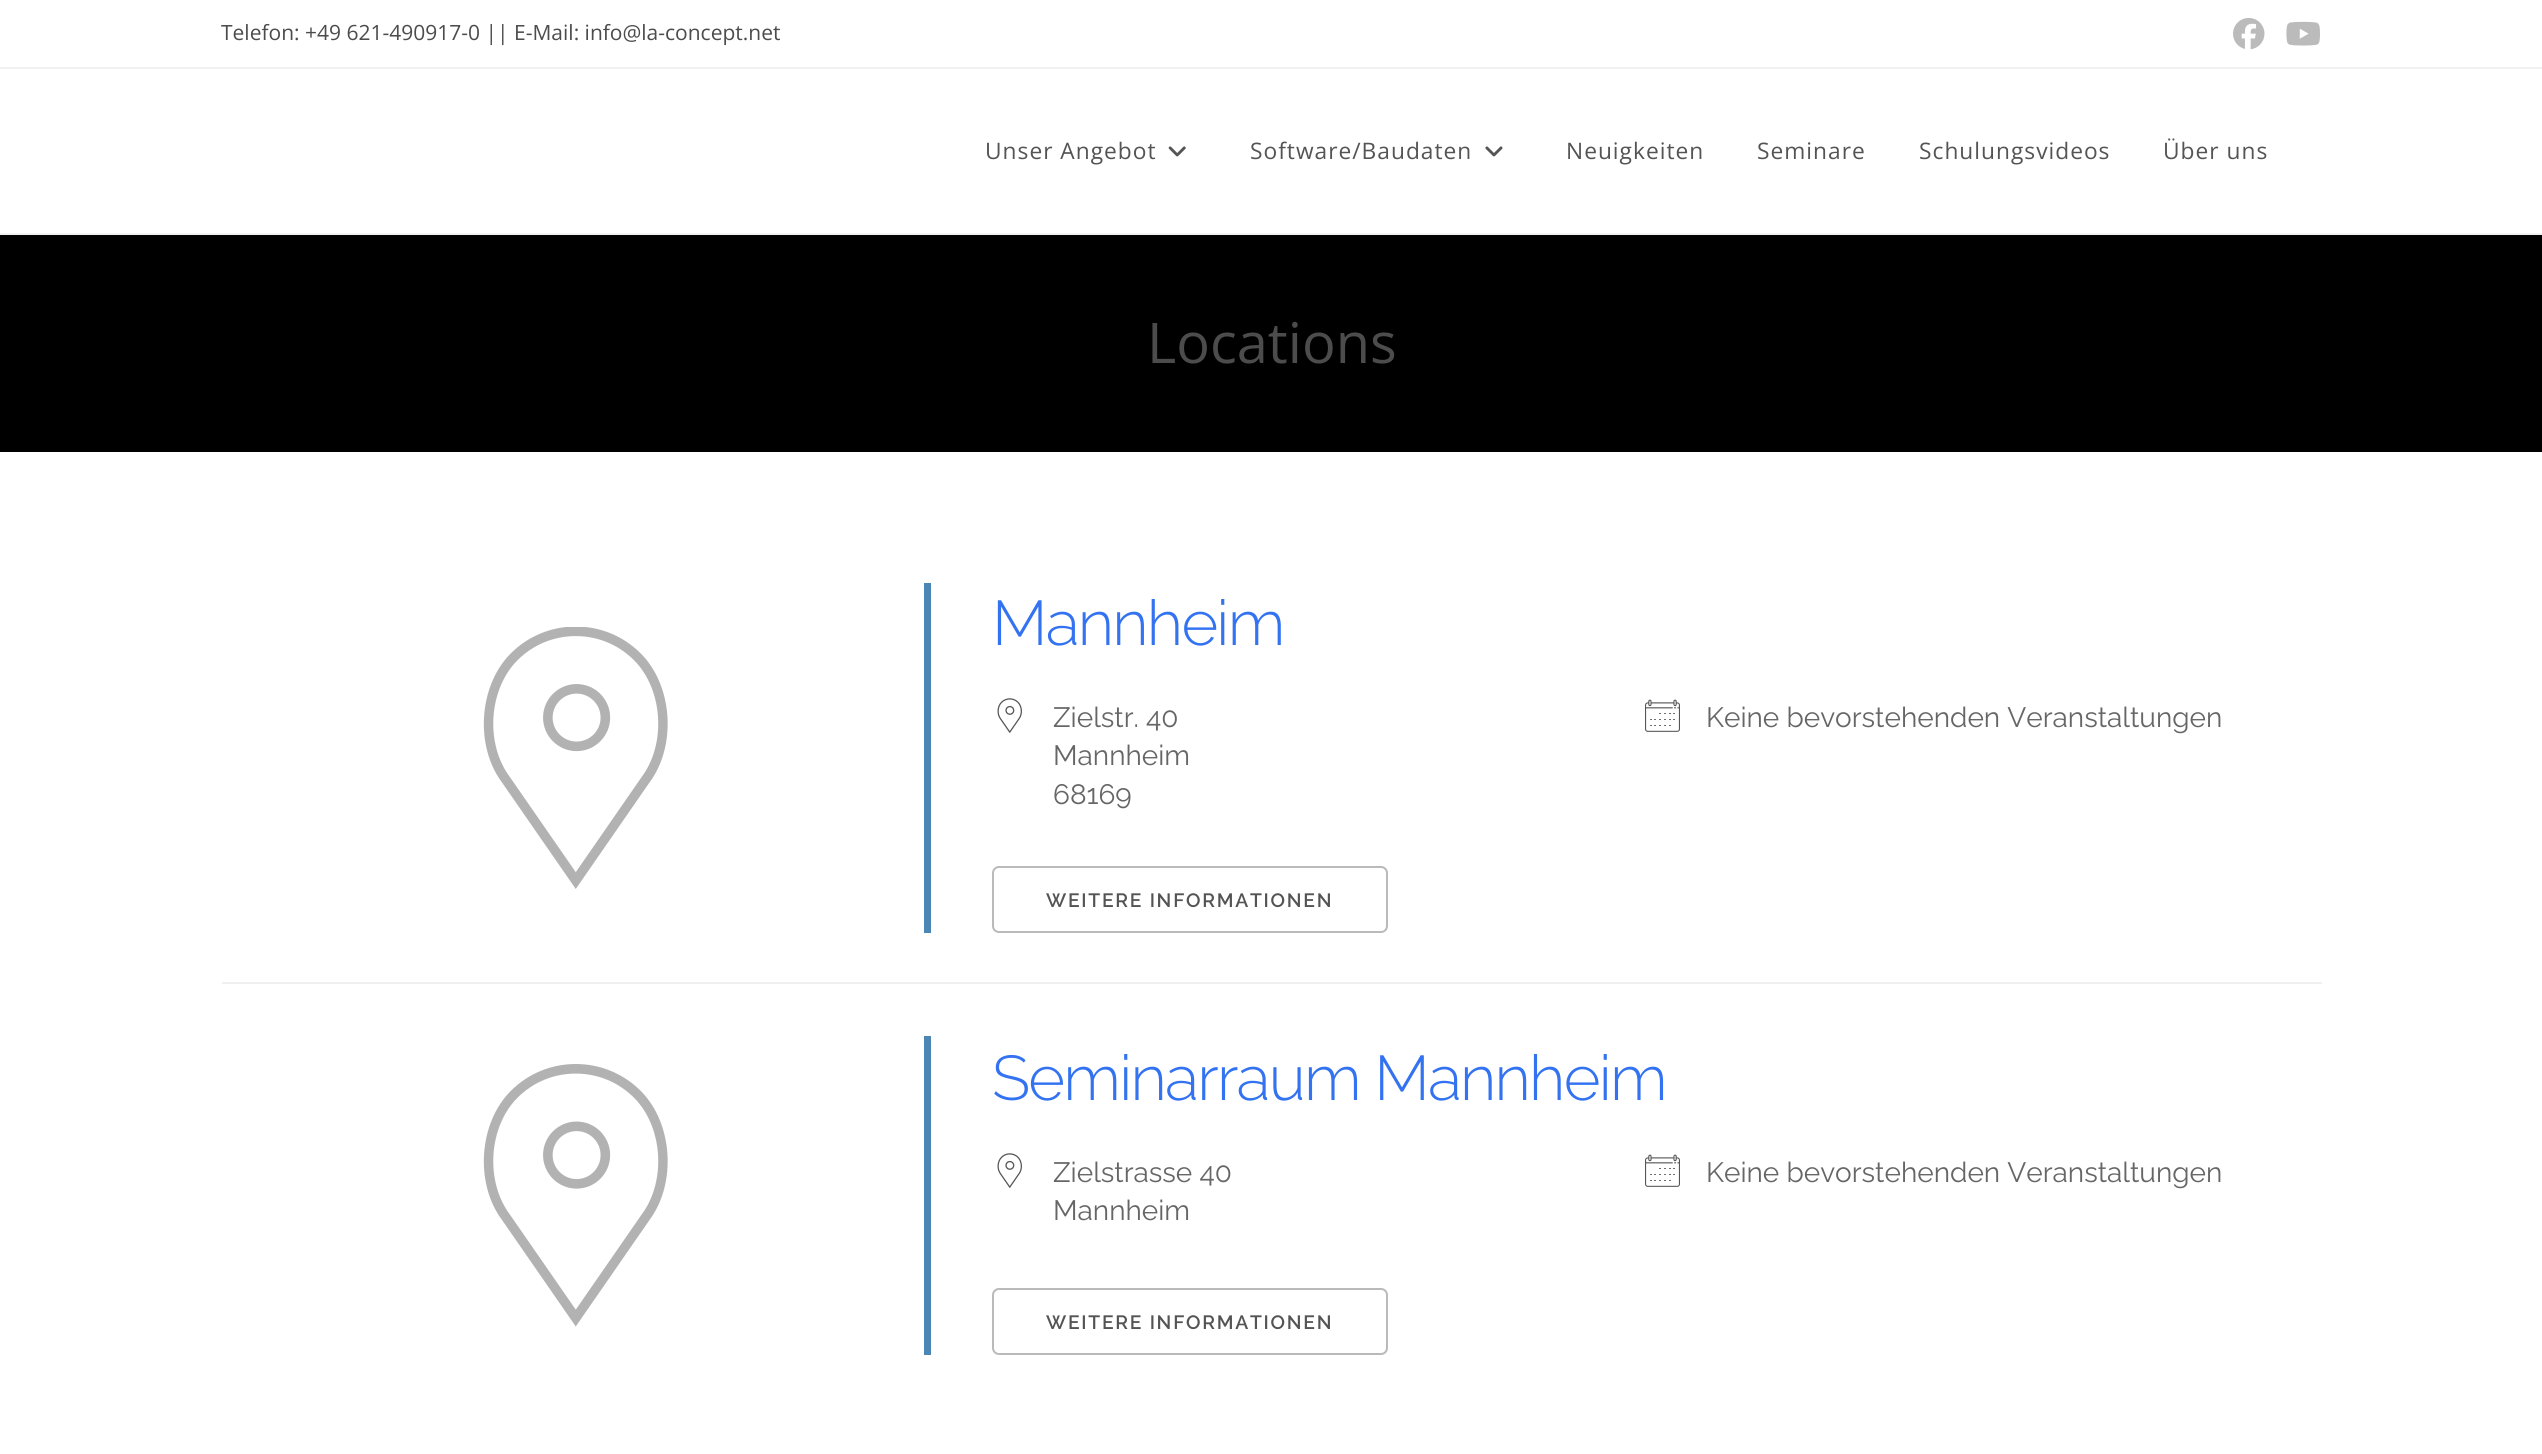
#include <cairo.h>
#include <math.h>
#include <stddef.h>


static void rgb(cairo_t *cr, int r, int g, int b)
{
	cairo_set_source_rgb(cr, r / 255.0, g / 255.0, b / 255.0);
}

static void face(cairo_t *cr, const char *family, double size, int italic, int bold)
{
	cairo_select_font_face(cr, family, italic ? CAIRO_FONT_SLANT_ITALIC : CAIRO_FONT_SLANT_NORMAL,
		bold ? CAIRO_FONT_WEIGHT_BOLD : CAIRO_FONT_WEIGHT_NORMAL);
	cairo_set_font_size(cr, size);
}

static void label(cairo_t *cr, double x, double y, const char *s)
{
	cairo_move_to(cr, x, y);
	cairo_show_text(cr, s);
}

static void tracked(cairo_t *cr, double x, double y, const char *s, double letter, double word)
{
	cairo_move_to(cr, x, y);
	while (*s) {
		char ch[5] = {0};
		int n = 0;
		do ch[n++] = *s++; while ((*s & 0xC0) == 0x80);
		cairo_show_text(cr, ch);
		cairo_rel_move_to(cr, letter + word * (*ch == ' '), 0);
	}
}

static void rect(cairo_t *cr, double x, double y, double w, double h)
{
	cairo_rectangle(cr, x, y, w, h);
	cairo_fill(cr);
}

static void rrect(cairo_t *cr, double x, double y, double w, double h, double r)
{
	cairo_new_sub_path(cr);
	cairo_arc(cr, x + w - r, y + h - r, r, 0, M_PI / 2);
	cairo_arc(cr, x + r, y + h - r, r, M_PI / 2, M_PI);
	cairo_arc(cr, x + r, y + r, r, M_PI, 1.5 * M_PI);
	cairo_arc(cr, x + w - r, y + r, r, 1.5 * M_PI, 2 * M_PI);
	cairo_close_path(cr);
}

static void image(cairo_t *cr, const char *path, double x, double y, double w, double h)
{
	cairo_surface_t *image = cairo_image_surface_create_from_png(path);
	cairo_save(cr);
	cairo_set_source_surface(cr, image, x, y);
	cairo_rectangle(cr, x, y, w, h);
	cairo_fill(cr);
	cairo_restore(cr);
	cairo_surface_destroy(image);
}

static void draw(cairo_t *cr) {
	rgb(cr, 255, 255, 255);
	cairo_paint(cr);
	rgb(cr, 241, 241, 241);
	rect(cr, 0, 67, 2542, 2);
	face(cr, "Open Sans", 21, 0, 0);
	rgb(cr, 76, 76, 76);
	label(cr, 221, 40, "Telefon: +49 621-490917-0 || E-Mail: info@la-concept.net");
	image(cr, "image0.png", 2233, 18, 32, 32);
	image(cr, "image1.png", 2286, 21, 34, 25);
	rgb(cr, 241, 241, 241);
	rect(cr, 0, 233, 2542, 2);
	face(cr, "Open Sans", 22.75, 0, 0);
	rgb(cr, 84, 84, 84);
	tracked(cr, 985, 159, "Unser Angebot", 1, 0);
	image(cr, "image2.png", 1168, 146, 18, 11);
	tracked(cr, 1250, 159, "Software/Baudaten", 1, 0);
	image(cr, "image3.png", 1485, 146, 18, 11);
	tracked(cr, 1566, 159, "Neuigkeiten", 1, 0);
	tracked(cr, 1757, 159, "Seminare", 1, 0);
	tracked(cr, 1919, 159, "Schulungsvideos", 1, 0);
	tracked(cr, 2163, 159, "Über uns", 1, 0);
	rgb(cr, 0, 0, 0);
	rect(cr, 0, 235, 2542, 217);
	face(cr, "Open Sans", 56, 0, 0);
	rgb(cr, 76, 76, 76);
	label(cr, 1147, 363, "Locations");
	image(cr, "image4.png", 483, 627, 185, 262);
	rgb(cr, 75, 134, 180);
	rect(cr, 924, 583, 7, 350);
	face(cr, "Raleway Light", 63, 0, 0);
	rgb(cr, 51, 114, 240);
	tracked(cr, 992, 645, "Mannheim", -1.75, 0);
	image(cr, "image5.png", 997, 698, 25, 35);
	face(cr, "Raleway", 28, 0, 0);
	rgb(cr, 102, 102, 102);
	label(cr, 1053, 727, "Zielstr. 40");
	label(cr, 1053, 765, "Mannheim");
	label(cr, 1053, 804, "68169");
	image(cr, "image6.png", 1645, 699, 35, 33);
	label(cr, 1706, 727, "Keine bevorstehenden Veranstaltungen");
	rrect(cr, 993, 867, 394, 65, 6);
	rgb(cr, 186, 186, 186);
	cairo_stroke(cr);
	face(cr, "Raleway SemiBold", 19.25, 0, 0);
	rgb(cr, 84, 84, 84);
	tracked(cr, 1046, 907, "WEITERE INFORMATIONEN", 1.75, 0);
	rgb(cr, 239, 239, 239);
	rect(cr, 222, 982, 2100, 2);
	image(cr, "image7.png", 483, 1064, 185, 263);
	rgb(cr, 75, 134, 180);
	rect(cr, 924, 1036, 7, 319);
	face(cr, "Raleway Light", 63, 0, 0);
	rgb(cr, 51, 114, 240);
	tracked(cr, 992, 1100, "Seminarraum Mannheim", -1.75, 0);
	image(cr, "image5.png", 997, 1153, 25, 35);
	face(cr, "Raleway", 28, 0, 0);
	rgb(cr, 102, 102, 102);
	label(cr, 1053, 1182, "Zielstrasse 40");
	label(cr, 1053, 1220, "Mannheim");
	image(cr, "image6.png", 1645, 1154, 35, 33);
	label(cr, 1706, 1182, "Keine bevorstehenden Veranstaltungen");
	rrect(cr, 993, 1289, 394, 65, 6);
	rgb(cr, 186, 186, 186);
	cairo_stroke(cr);
	face(cr, "Raleway SemiBold", 19.25, 0, 0);
	rgb(cr, 84, 84, 84);
	tracked(cr, 1046, 1329, "WEITERE INFORMATIONEN", 1.75, 0);
}

int main(void) {
	cairo_surface_t *surface = cairo_image_surface_create(CAIRO_FORMAT_RGB24, 2542, 1454);
	cairo_t *cr = cairo_create(surface);
	cairo_font_options_t *options = cairo_font_options_create();
	cairo_font_options_set_hint_metrics(options, CAIRO_HINT_METRICS_OFF);
	cairo_font_options_set_hint_style(options, CAIRO_HINT_STYLE_NONE);
	cairo_set_font_options(cr, options);
	cairo_set_miter_limit(cr, 4);
	draw(cr);
	cairo_surface_write_to_png(surface, "render.png");
	cairo_font_options_destroy(options);
	cairo_destroy(cr);
	cairo_surface_destroy(surface);
	return 0;
}
